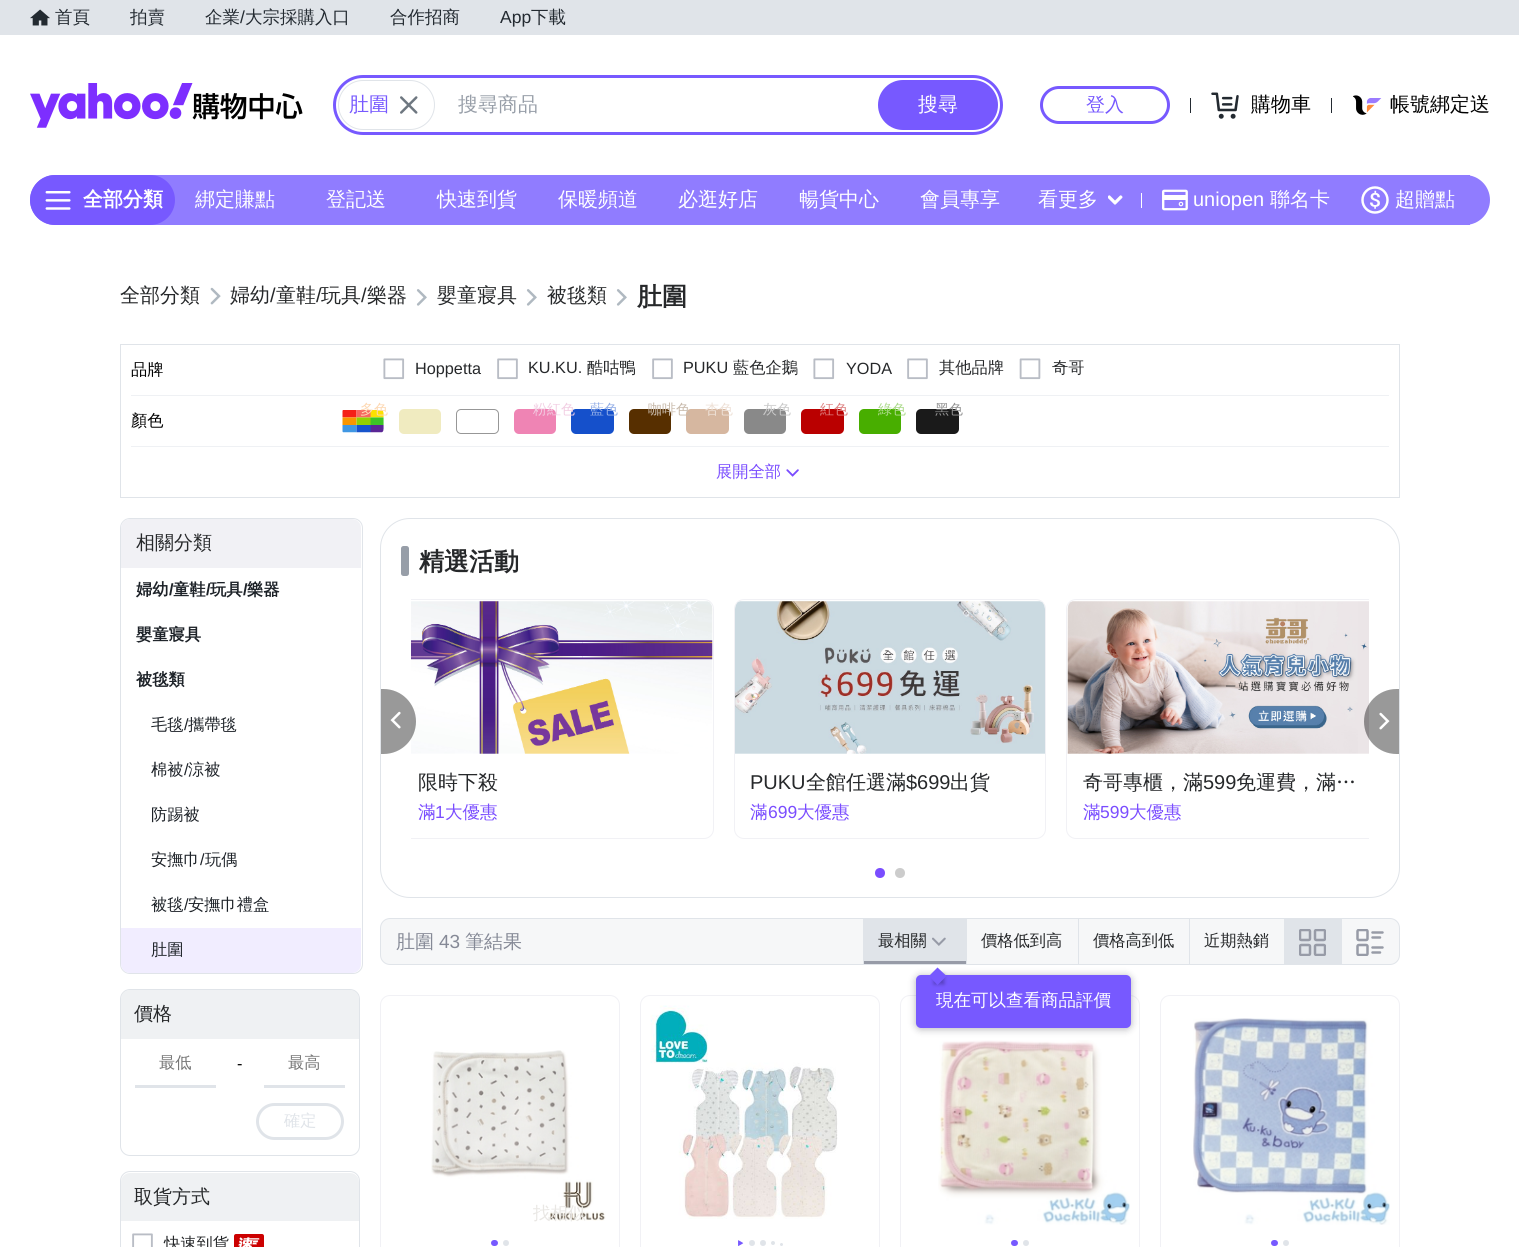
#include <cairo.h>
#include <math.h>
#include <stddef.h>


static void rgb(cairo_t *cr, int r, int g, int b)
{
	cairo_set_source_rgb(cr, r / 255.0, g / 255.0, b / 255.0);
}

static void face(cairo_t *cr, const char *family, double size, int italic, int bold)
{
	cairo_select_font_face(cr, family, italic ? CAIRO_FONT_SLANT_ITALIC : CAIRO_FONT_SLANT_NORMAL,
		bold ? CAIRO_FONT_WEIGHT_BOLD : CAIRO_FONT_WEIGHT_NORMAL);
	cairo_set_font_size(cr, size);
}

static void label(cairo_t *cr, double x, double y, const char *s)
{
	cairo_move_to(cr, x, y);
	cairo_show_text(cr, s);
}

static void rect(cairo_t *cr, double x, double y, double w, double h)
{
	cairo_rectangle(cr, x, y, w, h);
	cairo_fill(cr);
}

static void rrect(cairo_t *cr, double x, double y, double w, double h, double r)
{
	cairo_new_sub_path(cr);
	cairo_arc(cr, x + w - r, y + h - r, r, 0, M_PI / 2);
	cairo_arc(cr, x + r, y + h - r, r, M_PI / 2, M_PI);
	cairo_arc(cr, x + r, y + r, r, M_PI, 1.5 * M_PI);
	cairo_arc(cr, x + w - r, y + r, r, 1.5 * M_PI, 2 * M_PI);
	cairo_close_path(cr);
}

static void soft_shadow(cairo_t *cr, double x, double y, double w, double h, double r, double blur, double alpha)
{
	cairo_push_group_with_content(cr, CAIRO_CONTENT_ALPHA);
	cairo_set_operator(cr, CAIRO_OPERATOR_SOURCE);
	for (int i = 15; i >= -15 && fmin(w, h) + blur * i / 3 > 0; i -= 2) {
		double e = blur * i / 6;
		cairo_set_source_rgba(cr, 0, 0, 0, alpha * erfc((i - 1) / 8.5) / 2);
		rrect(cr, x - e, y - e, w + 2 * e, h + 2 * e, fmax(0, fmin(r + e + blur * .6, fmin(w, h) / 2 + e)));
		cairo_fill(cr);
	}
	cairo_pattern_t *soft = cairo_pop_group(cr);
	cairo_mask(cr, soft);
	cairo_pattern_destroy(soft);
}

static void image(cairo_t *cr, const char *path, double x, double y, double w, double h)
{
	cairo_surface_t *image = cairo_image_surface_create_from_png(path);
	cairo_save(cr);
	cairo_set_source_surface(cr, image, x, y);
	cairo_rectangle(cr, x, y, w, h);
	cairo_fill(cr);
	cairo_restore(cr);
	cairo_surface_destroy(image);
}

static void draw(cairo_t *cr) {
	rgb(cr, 255, 255, 255);
	cairo_paint(cr);
	rgb(cr, 224, 228, 233);
	rect(cr, 0, 0, 1519, 35);
	image(cr, "image0.png", 30, 9, 20, 17);
	face(cr, "WenQuanYi Zen Hei Medium", 17.5, 0, 0);
	rgb(cr, 35, 42, 49);
	label(cr, 55, 23, "首頁");
	label(cr, 130, 23, "拍賣");
	label(cr, 205, 23, "企業");
	face(cr, "Liberation Sans", 17.5, 0, 0);
	label(cr, 240, 23, "/");
	face(cr, "WenQuanYi Zen Hei Medium", 17.5, 0, 0);
	label(cr, 245, 23, "大宗採購入口");
	label(cr, 390, 23, "合作招商");
	face(cr, "Liberation Sans", 17.5, 0, 0);
	label(cr, 500, 23, "App");
	face(cr, "WenQuanYi Zen Hei Medium", 17.5, 0, 0);
	label(cr, 531, 23, "下載");
	image(cr, "image1.png", 30, 83, 273, 45);
	rrect(cr, 334.5, 76.5, 667, 57, 28.5);
	rgb(cr, 119, 89, 255);
	cairo_set_line_width(cr, 3);
	cairo_stroke(cr);
	rrect(cr, 338.5, 80.5, 96, 49, 24.5);
	rgb(cr, 224, 228, 233);
	cairo_set_line_width(cr, 1);
	cairo_stroke(cr);
	face(cr, "WenQuanYi Zen Hei Medium", 20, 0, 0);
	rgb(cr, 119, 89, 255);
	label(cr, 349, 111, "肚圍");
	image(cr, "image2.png", 400, 96, 18, 18);
	rgb(cr, 151, 158, 168);
	label(cr, 458, 111, "搜尋商品");
	rgb(cr, 119, 89, 255);
	rrect(cr, 878, 80, 120, 50, 25);
	cairo_fill(cr);
	rgb(cr, 255, 255, 255);
	label(cr, 918, 111, "搜尋");
	rrect(cr, 1041.5, 87.5, 127, 35, 17.5);
	rgb(cr, 119, 89, 255);
	cairo_set_line_width(cr, 3);
	cairo_stroke(cr);
	face(cr, "WenQuanYi Zen Hei Medium", 19, 0, 0);
	label(cr, 1086, 111, "登入");
	rgb(cr, 35, 42, 49);
	rect(cr, 1190, 98, 1, 15);
	image(cr, "image3.png", 1211, 92, 28, 27);
	face(cr, "WenQuanYi Zen Hei Medium", 20, 0, 0);
	rgb(cr, 0, 0, 0);
	label(cr, 1251, 111, "購物車");
	rgb(cr, 35, 42, 49);
	rect(cr, 1331, 98, 1, 15);
	image(cr, "image4.png", 1353, 95, 29, 20);
	rgb(cr, 0, 0, 0);
	label(cr, 1390, 111, "帳號綁定送");
	rgb(cr, 144, 124, 255);
	rrect(cr, 30, 175, 1460, 50, 25);
	cairo_fill(cr);
	rgb(cr, 119, 89, 255);
	rrect(cr, 30, 175, 145, 50, 25);
	cairo_fill(cr);
	image(cr, "image5.png", 45, 191, 26, 19);
	face(cr, "WenQuanYi Zen Hei", 20, 0, 1);
	rgb(cr, 255, 255, 255);
	label(cr, 83, 206, "全部分類");
	face(cr, "WenQuanYi Zen Hei Medium", 20, 0, 0);
	label(cr, 195, 206, "綁定賺點");
	label(cr, 326, 206, "登記送");
	label(cr, 437, 206, "快速到貨");
	label(cr, 558, 206, "保暖頻道");
	label(cr, 678, 206, "必逛好店");
	label(cr, 799, 206, "暢貨中心");
	label(cr, 920, 206, "會員專享");
	label(cr, 1038, 206, "看更多");
	image(cr, "image6.png", 1108, 195, 15, 10);
	rect(cr, 1141, 193, 1, 15);
	image(cr, "image7.png", 1162, 189, 26, 22);
	face(cr, "Liberation Sans", 20, 0, 0);
	label(cr, 1193, 206, "uniopen");
	face(cr, "WenQuanYi Zen Hei Medium", 20, 0, 0);
	label(cr, 1270, 206, "聯名卡");
	rgb(cr, 144, 124, 255);
	rect(cr, 1465, 175, 5, 50);
	image(cr, "image8.png", 1361, 186, 28, 28);
	rgb(cr, 255, 255, 255);
	label(cr, 1395, 206, "超贈點");
	image(cr, "image9.png", 210, 287, 11, 18);
	rgb(cr, 38, 40, 42);
	label(cr, 120, 302, "全部分類");
	label(cr, 230, 302, "婦幼");
	face(cr, "Liberation Sans", 20, 0, 0);
	label(cr, 270, 302, "/");
	face(cr, "WenQuanYi Zen Hei Medium", 20, 0, 0);
	label(cr, 276, 302, "童鞋");
	face(cr, "Liberation Sans", 20, 0, 0);
	label(cr, 316, 302, "/");
	face(cr, "WenQuanYi Zen Hei Medium", 20, 0, 0);
	label(cr, 321, 302, "玩具");
	face(cr, "Liberation Sans", 20, 0, 0);
	label(cr, 361, 302, "/");
	face(cr, "WenQuanYi Zen Hei Medium", 20, 0, 0);
	label(cr, 367, 302, "樂器");
	image(cr, "image10.png", 416, 289, 11, 17);
	label(cr, 437, 302, "嬰童寢具");
	image(cr, "image10.png", 526, 289, 11, 17);
	label(cr, 547, 302, "被毯類");
	image(cr, "image10.png", 616, 289, 11, 17);
	face(cr, "WenQuanYi Zen Hei", 25, 0, 1);
	label(cr, 637, 305, "肚圍");
	cairo_rectangle(cr, 120.5, 344.5, 1279, 153);
	rgb(cr, 224, 228, 233);
	cairo_set_line_width(cr, 1);
	cairo_stroke(cr);
	face(cr, "WenQuanYi Zen Hei Medium", 16.25, 0, 0);
	rgb(cr, 0, 0, 0);
	label(cr, 131, 375, "品牌");
	image(cr, "image11.png", 383, 358, 22, 22);
	face(cr, "Liberation Sans", 16.25, 0, 0);
	rgb(cr, 38, 40, 42);
	label(cr, 415, 374, "Hoppetta");
	image(cr, "image12.png", 497, 358, 21, 22);
	label(cr, 528, 373, "KU.KU.");
	face(cr, "WenQuanYi Zen Hei Medium", 16.25, 0, 0);
	label(cr, 587, 373, "酷咕鴨");
	image(cr, "image12.png", 652, 358, 21, 22);
	face(cr, "Liberation Sans", 16.25, 0, 0);
	label(cr, 683, 373, "PUKU");
	face(cr, "WenQuanYi Zen Hei Medium", 16.25, 0, 0);
	label(cr, 733, 373, "藍色企鵝");
	image(cr, "image11.png", 813, 358, 22, 22);
	face(cr, "Liberation Sans", 16.25, 0, 0);
	label(cr, 846, 374, "YODA");
	image(cr, "image12.png", 907, 358, 21, 22);
	face(cr, "WenQuanYi Zen Hei Medium", 16.25, 0, 0);
	label(cr, 939, 373, "其他品牌");
	image(cr, "image13.png", 1019, 358, 22, 22);
	label(cr, 1052, 373, "奇哥");
	rgb(cr, 239, 241, 244);
	rect(cr, 131, 395, 1258, 1);
	image(cr, "image14.png", 342, 410, 42, 23);
	face(cr, "WenQuanYi Zen Hei Medium", 14, 0, 0);
	rgb(cr, 253, 216, 178);
	label(cr, 360, 414, "多色");
	rgb(cr, 240, 235, 192);
	rrect(cr, 399, 409, 42, 25, 5);
	cairo_fill(cr);
	rrect(cr, 456.5, 409.5, 42, 24, 4.5);
	rgb(cr, 151, 151, 151);
	cairo_stroke(cr);
	rgb(cr, 239, 132, 180);
	rrect(cr, 514, 409, 42, 25, 5);
	cairo_fill(cr);
	rgb(cr, 21, 80, 203);
	rrect(cr, 571, 409, 43, 25, 5);
	cairo_fill(cr);
	rgb(cr, 242, 206, 227);
	label(cr, 533, 414, "粉紅色");
	rgb(cr, 148, 175, 231);
	label(cr, 590, 414, "藍色");
	rgb(cr, 87, 47, 0);
	rrect(cr, 629, 409, 42, 25, 5);
	cairo_fill(cr);
	rgb(cr, 214, 183, 160);
	rrect(cr, 686, 409, 43, 25, 5);
	cairo_fill(cr);
	rgb(cr, 200, 186, 171);
	label(cr, 648, 414, "咖啡色");
	rgb(cr, 238, 225, 215);
	label(cr, 705, 414, "杏色");
	rgb(cr, 137, 137, 137);
	rrect(cr, 744, 409, 42, 25, 5);
	cairo_fill(cr);
	rgb(cr, 201, 201, 201);
	label(cr, 763, 414, "灰色");
	rgb(cr, 186, 0, 0);
	rrect(cr, 801, 409, 43, 25, 5);
	cairo_fill(cr);
	rgb(cr, 221, 129, 129);
	label(cr, 820, 414, "紅色");
	rgb(cr, 72, 174, 0);
	rrect(cr, 859, 409, 42, 25, 5);
	cairo_fill(cr);
	rgb(cr, 171, 218, 138);
	label(cr, 878, 414, "綠色");
	rgb(cr, 26, 26, 26);
	rrect(cr, 916, 409, 43, 25, 5);
	cairo_fill(cr);
	rgb(cr, 147, 147, 147);
	label(cr, 935, 414, "黑色");
	face(cr, "WenQuanYi Zen Hei Medium", 16.25, 0, 0);
	rgb(cr, 0, 0, 0);
	label(cr, 131, 426, "顏色");
	rgb(cr, 239, 241, 244);
	rect(cr, 131, 446, 1258, 1);
	rgb(cr, 122, 77, 255);
	label(cr, 716, 477, "展開全部");
	image(cr, "image15.png", 786, 469, 13, 8);
	rrect(cr, 120.5, 518.5, 242, 455, 9.5);
	rgb(cr, 224, 228, 233);
	cairo_stroke(cr);
	rgb(cr, 241, 241, 245);
	cairo_new_path(cr);
	cairo_move_to(cr, 130, 519);
	cairo_line_to(cr, 352, 519);
	cairo_curve_to(cr, 357, 519, 361, 523, 361, 528);
	cairo_line_to(cr, 361, 568);
	cairo_line_to(cr, 121, 568);
	cairo_line_to(cr, 121, 528);
	cairo_curve_to(cr, 121, 523, 125, 519, 130, 519);
	cairo_close_path(cr);
	cairo_fill(cr);
	face(cr, "WenQuanYi Zen Hei Medium", 19, 0, 0);
	rgb(cr, 38, 40, 42);
	label(cr, 136, 549, "相關分類");
	face(cr, "WenQuanYi Zen Hei", 16.25, 0, 1);
	rgb(cr, 29, 34, 40);
	label(cr, 136, 595, "婦幼");
	face(cr, "Liberation Sans", 16.25, 0, 1);
	label(cr, 169, 595, "/");
	face(cr, "WenQuanYi Zen Hei", 16.25, 0, 1);
	label(cr, 173, 595, "童鞋");
	face(cr, "Liberation Sans", 16.25, 0, 1);
	label(cr, 206, 595, "/");
	face(cr, "WenQuanYi Zen Hei", 16.25, 0, 1);
	label(cr, 210, 595, "玩具");
	face(cr, "Liberation Sans", 16.25, 0, 1);
	label(cr, 243, 595, "/");
	face(cr, "WenQuanYi Zen Hei", 16.25, 0, 1);
	label(cr, 247, 595, "樂器");
	label(cr, 136, 640, "嬰童寢具");
	label(cr, 136, 685, "被毯類");
	face(cr, "WenQuanYi Zen Hei Medium", 16.25, 0, 0);
	label(cr, 151, 730, "毛毯");
	face(cr, "Liberation Sans", 16.25, 0, 0);
	label(cr, 184, 730, "/");
	face(cr, "WenQuanYi Zen Hei Medium", 16.25, 0, 0);
	label(cr, 188, 730, "攜帶毯");
	label(cr, 151, 775, "棉被");
	face(cr, "Liberation Sans", 16.25, 0, 0);
	label(cr, 184, 775, "/");
	face(cr, "WenQuanYi Zen Hei Medium", 16.25, 0, 0);
	label(cr, 188, 775, "涼被");
	label(cr, 151, 820, "防踢被");
	label(cr, 151, 865, "安撫巾");
	face(cr, "Liberation Sans", 16.25, 0, 0);
	label(cr, 200, 865, "/");
	face(cr, "WenQuanYi Zen Hei Medium", 16.25, 0, 0);
	label(cr, 205, 865, "玩偶");
	label(cr, 151, 910, "被毯");
	face(cr, "Liberation Sans", 16.25, 0, 0);
	label(cr, 184, 910, "/");
	face(cr, "WenQuanYi Zen Hei Medium", 16.25, 0, 0);
	label(cr, 188, 910, "安撫巾禮盒");
	rgb(cr, 241, 237, 255);
	cairo_new_path(cr);
	cairo_move_to(cr, 121, 928);
	cairo_line_to(cr, 361, 928);
	cairo_line_to(cr, 361, 964);
	cairo_curve_to(cr, 361, 969, 357, 973, 352, 973);
	cairo_line_to(cr, 130, 973);
	cairo_curve_to(cr, 125, 973, 121, 969, 121, 964);
	cairo_close_path(cr);
	cairo_fill(cr);
	rgb(cr, 29, 34, 40);
	label(cr, 151, 955, "肚圍");
	rrect(cr, 120.5, 989.5, 239, 166, 9.5);
	rgb(cr, 224, 228, 233);
	cairo_stroke(cr);
	cairo_set_source_rgba(cr, 0.878, 0.894, 0.914, 0.5);
	cairo_new_path(cr);
	cairo_move_to(cr, 130, 990);
	cairo_line_to(cr, 350, 990);
	cairo_curve_to(cr, 355, 990, 359, 994, 359, 999);
	cairo_line_to(cr, 359, 1039);
	cairo_line_to(cr, 121, 1039);
	cairo_line_to(cr, 121, 999);
	cairo_curve_to(cr, 121, 994, 125, 990, 130, 990);
	cairo_close_path(cr);
	cairo_fill(cr);
	face(cr, "WenQuanYi Zen Hei Medium", 19, 0, 0);
	rgb(cr, 38, 40, 42);
	label(cr, 134, 1020, "價格");
	rgb(cr, 224, 228, 233);
	rect(cr, 135, 1085, 81, 3);
	face(cr, "WenQuanYi Zen Hei Medium", 16.25, 0, 0);
	rgb(cr, 117, 117, 117);
	label(cr, 159, 1068, "最低");
	face(cr, "Liberation Sans", 16.25, 0, 0);
	rgb(cr, 0, 0, 0);
	label(cr, 237, 1069, "-");
	rgb(cr, 224, 228, 233);
	rect(cr, 264, 1085, 81, 3);
	face(cr, "WenQuanYi Zen Hei Medium", 16.25, 0, 0);
	rgb(cr, 117, 117, 117);
	label(cr, 288, 1068, "最高");
	rrect(cr, 257.5, 1104.5, 85, 34, 17);
	rgb(cr, 224, 228, 233);
	cairo_set_line_width(cr, 3);
	cairo_stroke(cr);
	label(cr, 284, 1126, "確定");
	rrect(cr, 120.5, 1171.5, 239, 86, 9.5);
	cairo_set_line_width(cr, 1);
	cairo_stroke(cr);
	cairo_set_source_rgba(cr, 0.878, 0.894, 0.914, 0.5);
	cairo_new_path(cr);
	cairo_move_to(cr, 130, 1173);
	cairo_line_to(cr, 350, 1173);
	cairo_curve_to(cr, 355, 1173, 359, 1177, 359, 1182);
	cairo_line_to(cr, 359, 1221);
	cairo_line_to(cr, 121, 1221);
	cairo_line_to(cr, 121, 1182);
	cairo_curve_to(cr, 121, 1177, 125, 1173, 130, 1173);
	cairo_close_path(cr);
	cairo_fill(cr);
	face(cr, "WenQuanYi Zen Hei Medium", 19, 0, 0);
	rgb(cr, 38, 40, 42);
	label(cr, 134, 1203, "取貨方式");
	image(cr, "image16.png", 132, 1233, 21, 14);
	face(cr, "WenQuanYi Zen Hei Medium", 16.25, 0, 0);
	label(cr, 164, 1249, "快速到貨");
	image(cr, "image17.png", 234, 1234, 30, 13);
	rrect(cr, 380.5, 518.5, 1019, 379, 29.5);
	rgb(cr, 224, 228, 233);
	cairo_stroke(cr);
	rgb(cr, 151, 158, 168);
	rrect(cr, 401, 546, 8, 30, 2.5);
	cairo_fill(cr);
	face(cr, "WenQuanYi Zen Hei", 25, 0, 1);
	rgb(cr, 38, 40, 42);
	label(cr, 419, 570, "精選活動");
	rrect(cr, 401.5, 599.5, 312, 239, 9.5);
	rgb(cr, 241, 241, 245);
	cairo_stroke(cr);
	rgb(cr, 255, 255, 255);
	rect(cr, 401, 599, 10, 240);
	rrect(cr, 1066.5, 599.5, 312, 239, 9.5);
	rgb(cr, 241, 241, 245);
	cairo_stroke(cr);
	rgb(cr, 255, 255, 255);
	rect(cr, 1369, 599, 10, 240);
	image(cr, "image20.png", 411, 601, 302, 153);
	cairo_set_source_rgba(cr, 0, 0, 0, 0.4);
	cairo_new_path(cr);
	cairo_move_to(cr, 381, 689);
	cairo_line_to(cr, 383.5, 689);
	cairo_curve_to(cr, 401.5, 689, 416, 703.5, 416, 721.5);
	cairo_curve_to(cr, 416, 739.5, 401.5, 754, 383.5, 754);
	cairo_line_to(cr, 381, 754);
	cairo_close_path(cr);
	cairo_fill(cr);
	image(cr, "image18.png", 390, 711, 11, 18);
	image(cr, "image22.png", 1067, 601, 302, 153);
	cairo_new_path(cr);
	cairo_move_to(cr, 1396.5, 689);
	cairo_line_to(cr, 1399, 689);
	cairo_line_to(cr, 1399, 754);
	cairo_line_to(cr, 1396.5, 754);
	cairo_curve_to(cr, 1378.5, 754, 1364, 739.5, 1364, 721.5);
	cairo_curve_to(cr, 1364, 703.5, 1378.5, 689, 1396.5, 689);
	cairo_close_path(cr);
	cairo_fill(cr);
	image(cr, "image19.png", 1379, 712, 11, 18);
	face(cr, "WenQuanYi Zen Hei Medium", 20, 0, 0);
	rgb(cr, 38, 40, 42);
	label(cr, 418, 789, "限時下殺");
	face(cr, "WenQuanYi Zen Hei Medium", 17.5, 0, 0);
	rgb(cr, 122, 77, 255);
	label(cr, 418, 818, "滿");
	face(cr, "Liberation Sans", 17.5, 0, 0);
	label(cr, 435, 818, "1");
	face(cr, "WenQuanYi Zen Hei Medium", 17.5, 0, 0);
	label(cr, 445, 818, "大優惠");
	rrect(cr, 734.5, 599.5, 311, 239, 9.5);
	rgb(cr, 241, 241, 245);
	cairo_stroke(cr);
	image(cr, "image21.png", 735, 601, 310, 153);
	face(cr, "Liberation Sans", 20, 0, 0);
	rgb(cr, 38, 40, 42);
	label(cr, 750, 789, "PUKU");
	face(cr, "WenQuanYi Zen Hei Medium", 20, 0, 0);
	label(cr, 806, 789, "全館任選滿");
	face(cr, "Liberation Sans", 20, 0, 0);
	label(cr, 906, 789, "$699");
	face(cr, "WenQuanYi Zen Hei Medium", 20, 0, 0);
	label(cr, 950, 789, "出貨");
	face(cr, "WenQuanYi Zen Hei Medium", 17.5, 0, 0);
	rgb(cr, 122, 77, 255);
	label(cr, 750, 818, "滿");
	face(cr, "Liberation Sans", 17.5, 0, 0);
	label(cr, 768, 818, "699");
	face(cr, "WenQuanYi Zen Hei Medium", 17.5, 0, 0);
	label(cr, 797, 818, "大優惠");
	face(cr, "WenQuanYi Zen Hei Medium", 20, 0, 0);
	rgb(cr, 38, 40, 42);
	label(cr, 1083, 789, "奇哥專櫃，滿");
	face(cr, "Liberation Sans", 20, 0, 0);
	label(cr, 1203, 789, "599");
	face(cr, "WenQuanYi Zen Hei Medium", 20, 0, 0);
	label(cr, 1236, 789, "免運費，滿…");
	face(cr, "WenQuanYi Zen Hei Medium", 17.5, 0, 0);
	rgb(cr, 122, 77, 255);
	label(cr, 1083, 818, "滿");
	face(cr, "Liberation Sans", 17.5, 0, 0);
	label(cr, 1100, 818, "599");
	face(cr, "WenQuanYi Zen Hei Medium", 17.5, 0, 0);
	label(cr, 1129, 818, "大優惠");
	cairo_new_path(cr);
	cairo_arc(cr, 880, 873, 5, 0, 2 * M_PI);
	cairo_fill(cr);
	rgb(cr, 204, 204, 204);
	cairo_arc(cr, 900, 873, 5, 0, 2 * M_PI);
	cairo_fill(cr);
	rgb(cr, 246, 247, 248);
	rrect(cr, 380.5, 918.5, 1019, 46, 9.5);
	cairo_fill_preserve(cr);
	rgb(cr, 224, 228, 233);
	cairo_stroke(cr);
	face(cr, "WenQuanYi Zen Hei Medium", 19, 0, 0);
	rgb(cr, 133, 137, 150);
	label(cr, 396, 948, "肚圍");
	face(cr, "Liberation Sans", 19, 0, 0);
	label(cr, 439, 948, "43");
	face(cr, "WenQuanYi Zen Hei Medium", 19, 0, 0);
	label(cr, 465, 948, "筆結果");
	rgb(cr, 224, 228, 233);
	rect(cr, 864, 919, 102, 42);
	rgb(cr, 151, 155, 167);
	rect(cr, 863, 961, 103, 3);
	rgb(cr, 224, 228, 233);
	rect(cr, 863, 919, 1, 45);
	face(cr, "WenQuanYi Zen Hei Medium", 16.25, 0, 0);
	rgb(cr, 38, 40, 42);
	label(cr, 878, 946, "最相關");
	image(cr, "image23.png", 932, 937, 14, 9);
	rgb(cr, 224, 228, 233);
	rect(cr, 966, 919, 1, 45);
	rgb(cr, 38, 40, 42);
	label(cr, 981, 946, "價格低到高");
	rgb(cr, 224, 228, 233);
	rect(cr, 1078, 919, 1, 45);
	rgb(cr, 38, 40, 42);
	label(cr, 1093, 946, "價格高到低");
	rgb(cr, 224, 228, 233);
	rect(cr, 1189, 919, 1, 45);
	rgb(cr, 38, 40, 42);
	label(cr, 1204, 946, "近期熱銷");
	rgb(cr, 224, 228, 233);
	rect(cr, 1284, 919, 58, 45);
	image(cr, "image24.png", 1299, 929, 27, 27);
	image(cr, "image25.png", 1356, 929, 28, 27);
	rrect(cr, 900.5, 995.5, 239, 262, 9.5);
	rgb(cr, 241, 241, 245);
	cairo_stroke(cr);
	image(cr, "image29.png", 938, 1040, 192, 185);
	rgb(cr, 0, 0, 20);
	soft_shadow(cr, 916, 976, 215, 53, 5, 4, 0.3);
	rgb(cr, 119, 89, 255);
	rrect(cr, 916, 975, 215, 53, 5);
	cairo_fill(cr);
	rgb(cr, 0, 0, 20);
	soft_shadow(cr, 934, 974, 10, 10, 0, 2, 0.3);
	rgb(cr, 119, 89, 255);
	cairo_new_path(cr);
	cairo_move_to(cr, 937.5, 985);
	cairo_line_to(cr, 929, 976);
	cairo_line_to(cr, 937.5, 967.5);
	cairo_line_to(cr, 946.5, 976);
	cairo_close_path(cr);
	cairo_fill(cr);
	face(cr, "WenQuanYi Zen Hei Medium", 17.5, 0, 0);
	rgb(cr, 255, 255, 255);
	label(cr, 936, 1006, "現在可以查看商品評價");
	rrect(cr, 380.5, 995.5, 239, 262, 9.5);
	rgb(cr, 241, 241, 245);
	cairo_stroke(cr);
	image(cr, "image26.png", 431, 1050, 175, 171);
	rgb(cr, 119, 89, 255);
	rrect(cr, 491, 1240, 7, 6, 3);
	cairo_fill(cr);
	rgb(cr, 224, 228, 233);
	cairo_arc(cr, 506, 1243, 3, 0, 2 * M_PI);
	cairo_fill(cr);
	rgb(cr, 233, 231, 228);
	label(cr, 533, 1219, "找相似");
	rrect(cr, 640.5, 995.5, 239, 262, 9.5);
	rgb(cr, 241, 241, 245);
	cairo_stroke(cr);
	image(cr, "image27.png", 650, 1005, 188, 214);
	image(cr, "image28.png", 738, 1240, 6, 6);
	rgb(cr, 224, 228, 233);
	cairo_arc(cr, 752, 1243, 3, 0, 2 * M_PI);
	cairo_fill(cr);
	cairo_arc(cr, 763, 1243, 3, 0, 2 * M_PI);
	cairo_fill(cr);
	cairo_arc(cr, 773, 1243, 2, 0, 2 * M_PI);
	cairo_fill(cr);
	cairo_arc(cr, 781.5, 1244.5, 1.5, 0, 2 * M_PI);
	cairo_fill(cr);
	rgb(cr, 119, 89, 255);
	rrect(cr, 1011, 1240, 7, 6, 3);
	cairo_fill(cr);
	rgb(cr, 224, 228, 233);
	cairo_arc(cr, 1026, 1243, 3, 0, 2 * M_PI);
	cairo_fill(cr);
	rrect(cr, 1160.5, 995.5, 239, 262, 9.5);
	rgb(cr, 241, 241, 245);
	cairo_stroke(cr);
	image(cr, "image30.png", 1193, 1018, 197, 207);
	rgb(cr, 119, 89, 255);
	rrect(cr, 1271, 1240, 7, 6, 3);
	cairo_fill(cr);
	rgb(cr, 224, 228, 233);
	cairo_arc(cr, 1286, 1243, 3, 0, 2 * M_PI);
	cairo_fill(cr);
}

int main(void) {
	cairo_surface_t *surface = cairo_image_surface_create(CAIRO_FORMAT_RGB24, 1519, 1247);
	cairo_t *cr = cairo_create(surface);
	cairo_font_options_t *options = cairo_font_options_create();
	cairo_font_options_set_hint_metrics(options, CAIRO_HINT_METRICS_OFF);
	cairo_font_options_set_hint_style(options, CAIRO_HINT_STYLE_NONE);
	cairo_set_font_options(cr, options);
	cairo_set_miter_limit(cr, 4);
	draw(cr);
	cairo_surface_write_to_png(surface, "render.png");
	cairo_font_options_destroy(options);
	cairo_destroy(cr);
	cairo_surface_destroy(surface);
	return 0;
}
